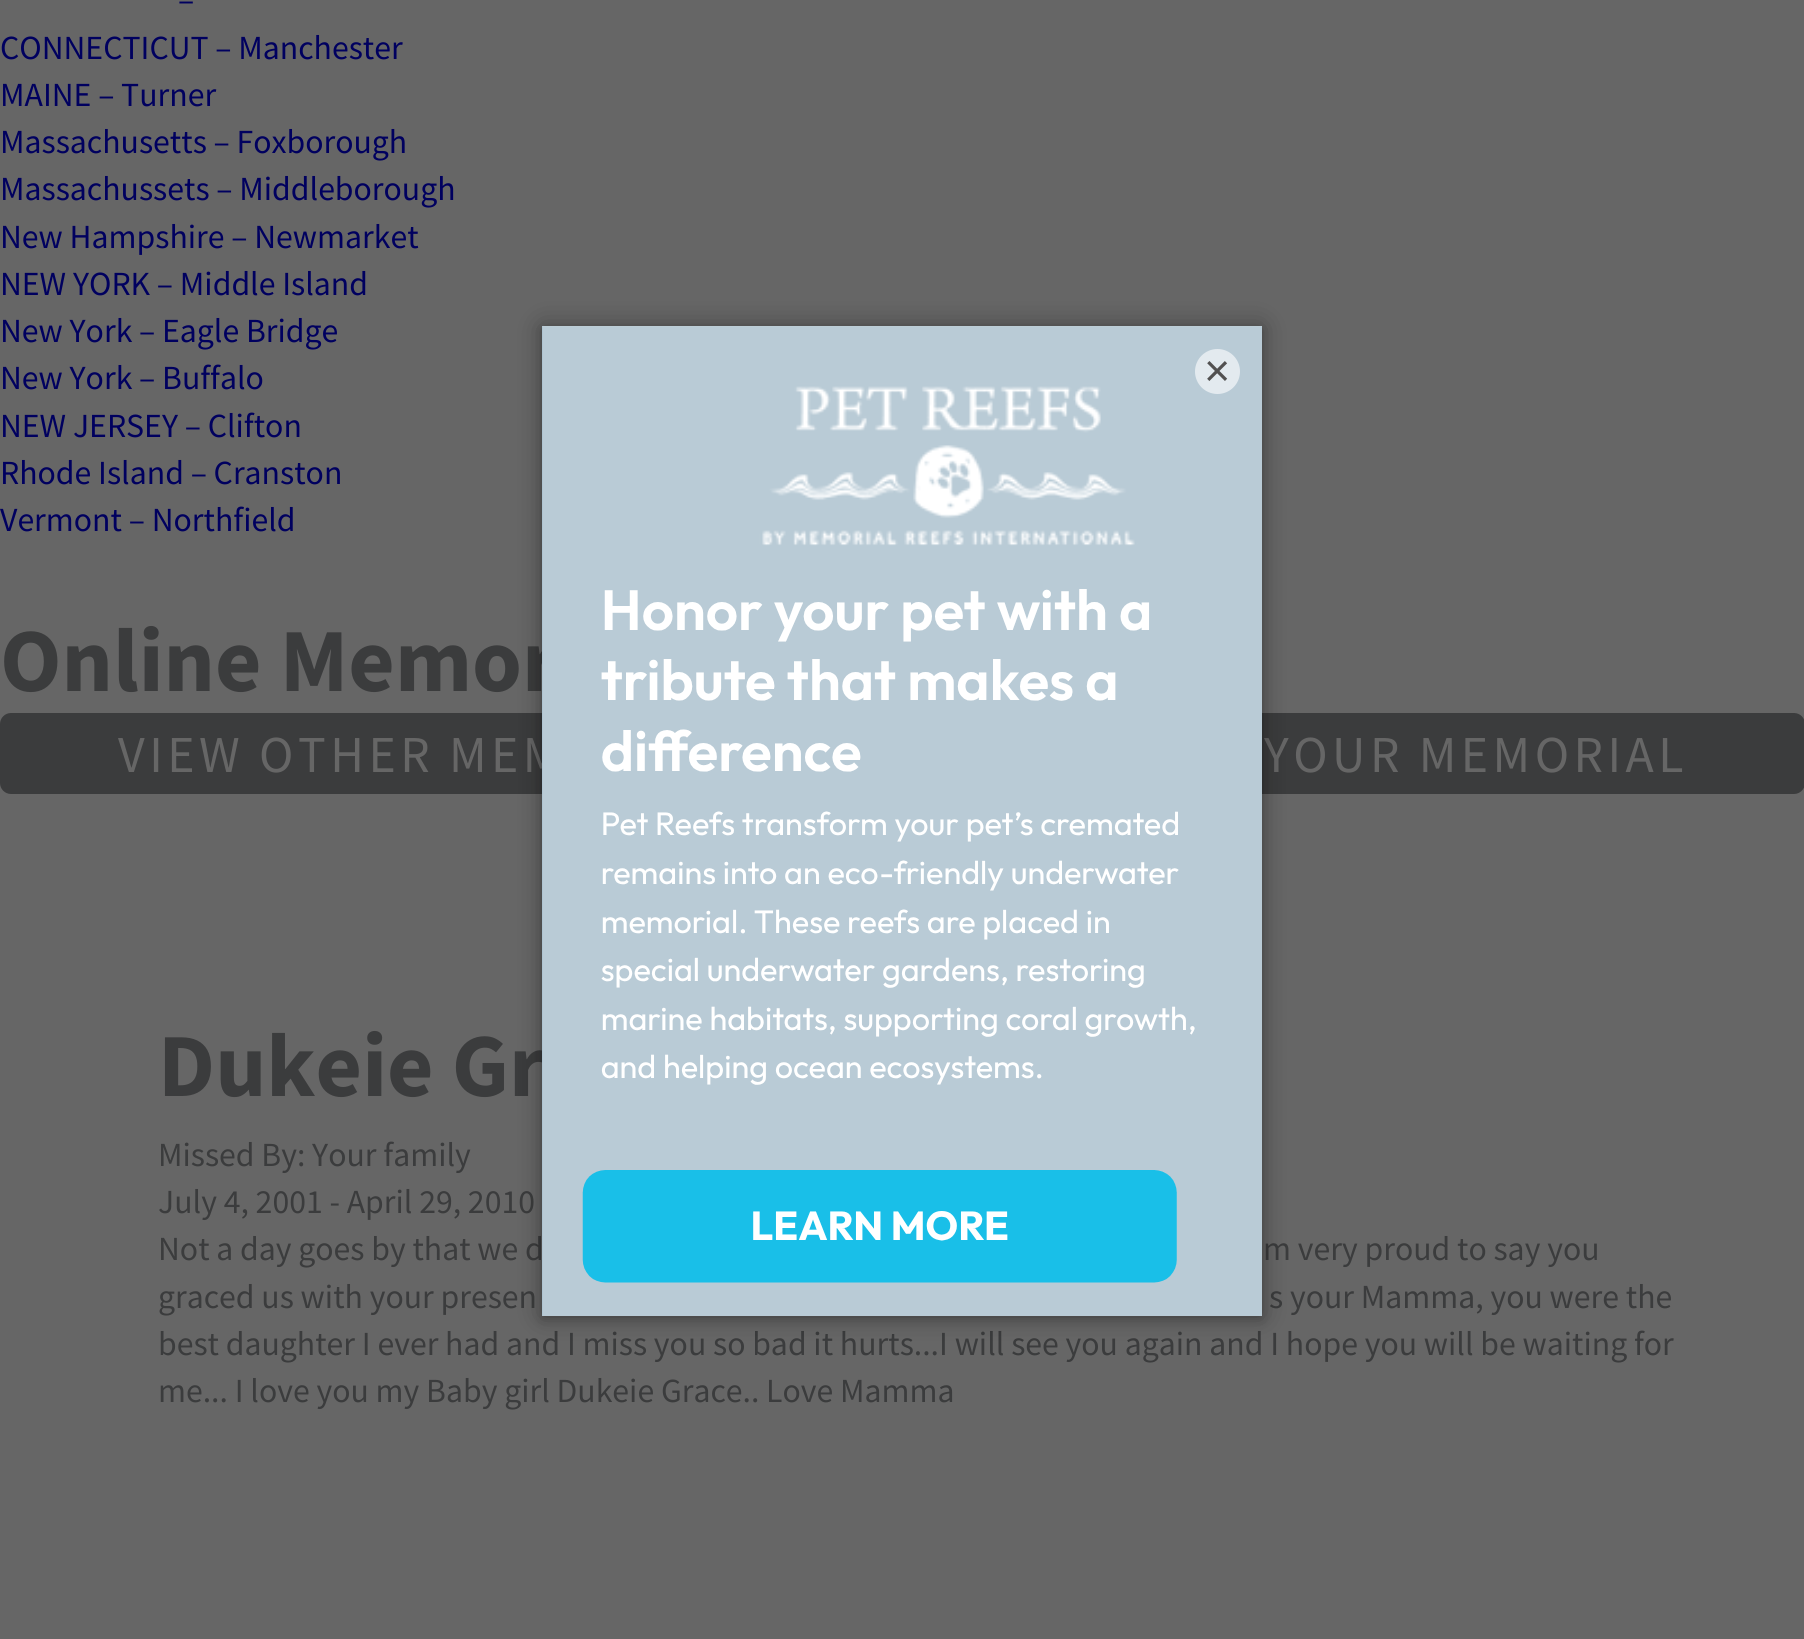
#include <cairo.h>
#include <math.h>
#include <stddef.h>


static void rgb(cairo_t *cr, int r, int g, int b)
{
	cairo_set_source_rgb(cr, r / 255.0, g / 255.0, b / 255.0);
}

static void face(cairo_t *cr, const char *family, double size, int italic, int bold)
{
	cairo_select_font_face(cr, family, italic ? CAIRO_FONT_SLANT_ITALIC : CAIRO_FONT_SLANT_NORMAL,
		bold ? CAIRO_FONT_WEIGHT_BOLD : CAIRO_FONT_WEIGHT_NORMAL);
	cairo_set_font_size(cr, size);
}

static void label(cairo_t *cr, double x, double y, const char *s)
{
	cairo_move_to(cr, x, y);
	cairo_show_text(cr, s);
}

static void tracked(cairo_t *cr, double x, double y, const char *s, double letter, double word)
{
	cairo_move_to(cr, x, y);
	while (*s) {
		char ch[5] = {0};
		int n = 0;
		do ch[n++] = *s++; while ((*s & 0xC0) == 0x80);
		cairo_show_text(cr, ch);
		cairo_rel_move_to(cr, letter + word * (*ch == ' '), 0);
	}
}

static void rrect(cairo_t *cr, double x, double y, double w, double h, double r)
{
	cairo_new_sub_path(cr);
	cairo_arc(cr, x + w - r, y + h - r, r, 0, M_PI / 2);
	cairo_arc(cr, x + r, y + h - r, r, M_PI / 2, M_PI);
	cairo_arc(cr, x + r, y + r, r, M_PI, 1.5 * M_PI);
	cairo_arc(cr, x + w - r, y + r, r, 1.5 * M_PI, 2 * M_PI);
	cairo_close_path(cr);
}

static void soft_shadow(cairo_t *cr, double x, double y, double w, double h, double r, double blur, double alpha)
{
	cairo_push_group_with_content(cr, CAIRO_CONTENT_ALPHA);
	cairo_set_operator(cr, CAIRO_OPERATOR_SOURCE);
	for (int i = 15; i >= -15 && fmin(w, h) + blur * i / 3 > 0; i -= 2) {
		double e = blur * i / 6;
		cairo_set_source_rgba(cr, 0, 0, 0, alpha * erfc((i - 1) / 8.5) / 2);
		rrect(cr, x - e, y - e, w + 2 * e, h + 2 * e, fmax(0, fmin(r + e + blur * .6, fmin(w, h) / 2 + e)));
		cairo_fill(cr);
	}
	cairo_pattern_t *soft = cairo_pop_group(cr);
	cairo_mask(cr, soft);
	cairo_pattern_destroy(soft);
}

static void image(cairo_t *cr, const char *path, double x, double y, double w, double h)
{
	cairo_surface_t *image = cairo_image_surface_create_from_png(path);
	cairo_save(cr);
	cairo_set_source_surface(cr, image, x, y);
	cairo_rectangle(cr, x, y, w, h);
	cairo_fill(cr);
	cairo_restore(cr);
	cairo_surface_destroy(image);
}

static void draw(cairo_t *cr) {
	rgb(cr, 102, 102, 102);
	cairo_paint(cr);
	face(cr, "Source Sans Pro", 33.75, 0, 0);
	rgb(cr, 0, 0, 95);
	label(cr, 178, 11, "–");
	label(cr, 0, 59, "CONNECTICUT – Manchester");
	label(cr, 0, 106, "MAINE – Turner");
	label(cr, 0, 153, "Massachusetts – Foxborough");
	label(cr, 0, 200, "Massachussets – Middleborough");
	label(cr, 0, 248, "New Hampshire – Newmarket");
	label(cr, 0, 295, "NEW YORK – Middle Island");
	label(cr, 0, 342, "New York – Eagle Bridge");
	label(cr, 0, 389, "New York – Buffalo");
	label(cr, 0, 437, "NEW JERSEY – Clifton");
	label(cr, 0, 484, "Rhode Island – Cranston");
	label(cr, 0, 531, "Vermont – Northfield");
	face(cr, "Source Sans Pro", 90, 0, 1);
	rgb(cr, 59, 60, 61);
	label(cr, 0, 691, "Online Memor");
	rrect(cr, 0, 713, 869, 81, 11);
	cairo_fill(cr);
	face(cr, "Source Sans Pro", 51.75, 0, 0);
	rgb(cr, 102, 102, 102);
	tracked(cr, 118, 772, "VIEW OTHER MEM", 4.5, 0);
	rgb(cr, 59, 60, 61);
	rrect(cr, 936, 713, 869, 81, 11);
	cairo_fill(cr);
	rgb(cr, 102, 102, 102);
	tracked(cr, 1264, 772, "YOUR MEMORIAL", 4.5, 0);
	face(cr, "Source Sans Pro", 90, 0, 1);
	rgb(cr, 59, 60, 61);
	label(cr, 158, 1096, "Dukeie Gr");
	face(cr, "Source Sans Pro", 33.75, 0, 0);
	label(cr, 158, 1166, "Missed By: Your family");
	label(cr, 158, 1213, "July 4, 2001 - April 29, 2010");
	label(cr, 158, 1260, "Not a day goes by that we d");
	label(cr, 1263, 1260, "m very proud to say you");
	label(cr, 158, 1308, "graced us with your presen");
	label(cr, 1269, 1308, "s your Mamma, you were the");
	label(cr, 158, 1355, "best daughter I ever had and I miss you so bad it hurts...I will see you again and I hope you will be waiting for");
	label(cr, 158, 1402, "me... I love you my Baby girl Dukeie Grace.. Love Mamma");
	rgb(cr, 0, 0, 0);
	soft_shadow(cr, 542, 326, 720, 990, 0, 13.5, 0.3);
	soft_shadow(cr, 542, 329, 720, 990, 0, 5.5, 0.2);
	image(cr, "image0.png", 542, 326, 720, 990);
	rgb(cr, 227, 234, 239);
	cairo_arc(cr, 1217.5, 371.5, 22.5, 0, 2 * M_PI);
	cairo_fill(cr);
	face(cr, "Liberation Sans", 45, 0, 0);
	rgb(cr, 82, 81, 81);
	label(cr, 1204, 386, "×");
}

int main(void) {
	cairo_surface_t *surface = cairo_image_surface_create(CAIRO_FORMAT_RGB24, 1804, 1639);
	cairo_t *cr = cairo_create(surface);
	cairo_font_options_t *options = cairo_font_options_create();
	cairo_font_options_set_hint_metrics(options, CAIRO_HINT_METRICS_OFF);
	cairo_font_options_set_hint_style(options, CAIRO_HINT_STYLE_NONE);
	cairo_set_font_options(cr, options);
	cairo_set_miter_limit(cr, 4);
	draw(cr);
	cairo_surface_write_to_png(surface, "render.png");
	cairo_font_options_destroy(options);
	cairo_destroy(cr);
	cairo_surface_destroy(surface);
	return 0;
}
